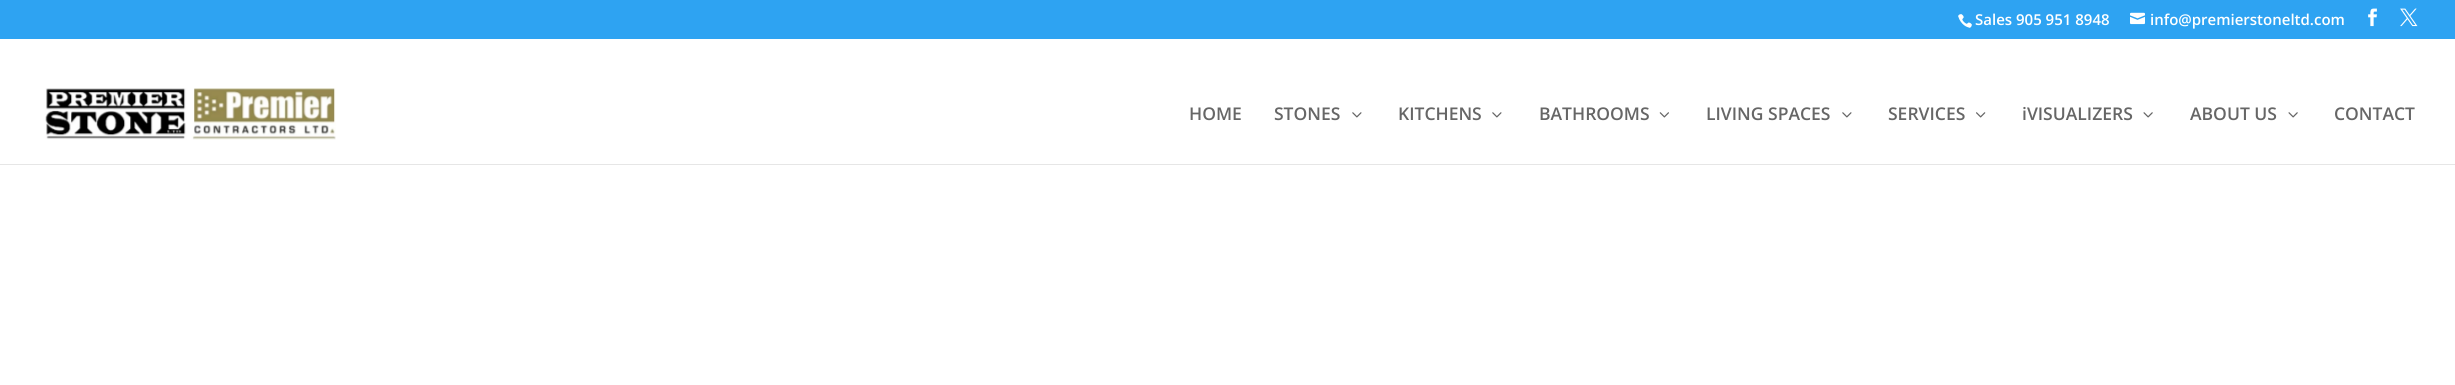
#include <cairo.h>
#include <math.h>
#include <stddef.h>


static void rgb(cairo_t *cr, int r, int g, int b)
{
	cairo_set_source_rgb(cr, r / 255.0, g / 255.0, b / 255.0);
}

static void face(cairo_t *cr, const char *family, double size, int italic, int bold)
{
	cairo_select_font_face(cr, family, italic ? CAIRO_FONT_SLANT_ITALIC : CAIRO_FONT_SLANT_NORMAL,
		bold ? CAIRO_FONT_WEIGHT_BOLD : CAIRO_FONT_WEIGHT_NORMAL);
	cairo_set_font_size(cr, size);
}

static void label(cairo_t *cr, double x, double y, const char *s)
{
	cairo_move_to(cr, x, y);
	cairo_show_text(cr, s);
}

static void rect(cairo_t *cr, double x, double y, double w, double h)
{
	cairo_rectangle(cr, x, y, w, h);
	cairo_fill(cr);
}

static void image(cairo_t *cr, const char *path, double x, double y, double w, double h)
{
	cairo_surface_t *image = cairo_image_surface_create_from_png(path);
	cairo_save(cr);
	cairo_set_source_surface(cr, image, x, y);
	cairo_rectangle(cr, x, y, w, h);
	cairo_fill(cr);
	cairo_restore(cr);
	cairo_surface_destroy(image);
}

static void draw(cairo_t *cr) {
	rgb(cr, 255, 255, 255);
	cairo_paint(cr);
	rgb(cr, 46, 163, 242);
	rect(cr, 0, 0, 2455, 39);
	image(cr, "image0.png", 1958, 14, 14, 14);
	face(cr, "Open Sans SemiBold", 15, 0, 0);
	rgb(cr, 255, 255, 255);
	label(cr, 1975, 25, "Sales 905 951 8948");
	image(cr, "image1.png", 2130, 12, 15, 13);
	label(cr, 2150, 25, "info@premierstoneltd.com");
	image(cr, "image2.png", 2368, 8, 9, 19);
	image(cr, "image3.png", 2400, 8, 18, 19);
	cairo_set_source_rgba(cr, 0, 0, 0, 0.1);
	rect(cr, 0, 164, 2455, 1);
	image(cr, "image4.png", 45, 88, 291, 52);
	face(cr, "Open Sans SemiBold", 17.5, 0, 0);
	rgb(cr, 102, 102, 102);
	label(cr, 1189, 120, "HOME");
	label(cr, 1274, 120, "STONES");
	image(cr, "image5.png", 1352, 112, 10, 6);
	label(cr, 1398, 120, "KITCHENS");
	image(cr, "image5.png", 1492, 112, 10, 6);
	label(cr, 1539, 120, "BATHROOMS");
	image(cr, "image6.png", 1659, 112, 10, 6);
	label(cr, 1706, 120, "LIVING SPACES");
	image(cr, "image5.png", 1842, 112, 10, 6);
	label(cr, 1888, 120, "SERVICES");
	image(cr, "image7.png", 1976, 112, 10, 6);
	label(cr, 2022, 120, "iVISUALIZERS");
	image(cr, "image8.png", 2143, 112, 10, 6);
	label(cr, 2190, 120, "ABOUT US");
	image(cr, "image8.png", 2288, 112, 10, 6);
	label(cr, 2334, 120, "CONTACT");
}

int main(void) {
	cairo_surface_t *surface = cairo_image_surface_create(CAIRO_FORMAT_RGB24, 2455, 385);
	cairo_t *cr = cairo_create(surface);
	cairo_font_options_t *options = cairo_font_options_create();
	cairo_font_options_set_hint_metrics(options, CAIRO_HINT_METRICS_OFF);
	cairo_font_options_set_hint_style(options, CAIRO_HINT_STYLE_NONE);
	cairo_set_font_options(cr, options);
	cairo_set_miter_limit(cr, 4);
	draw(cr);
	cairo_surface_write_to_png(surface, "render.png");
	cairo_font_options_destroy(options);
	cairo_destroy(cr);
	cairo_surface_destroy(surface);
	return 0;
}
